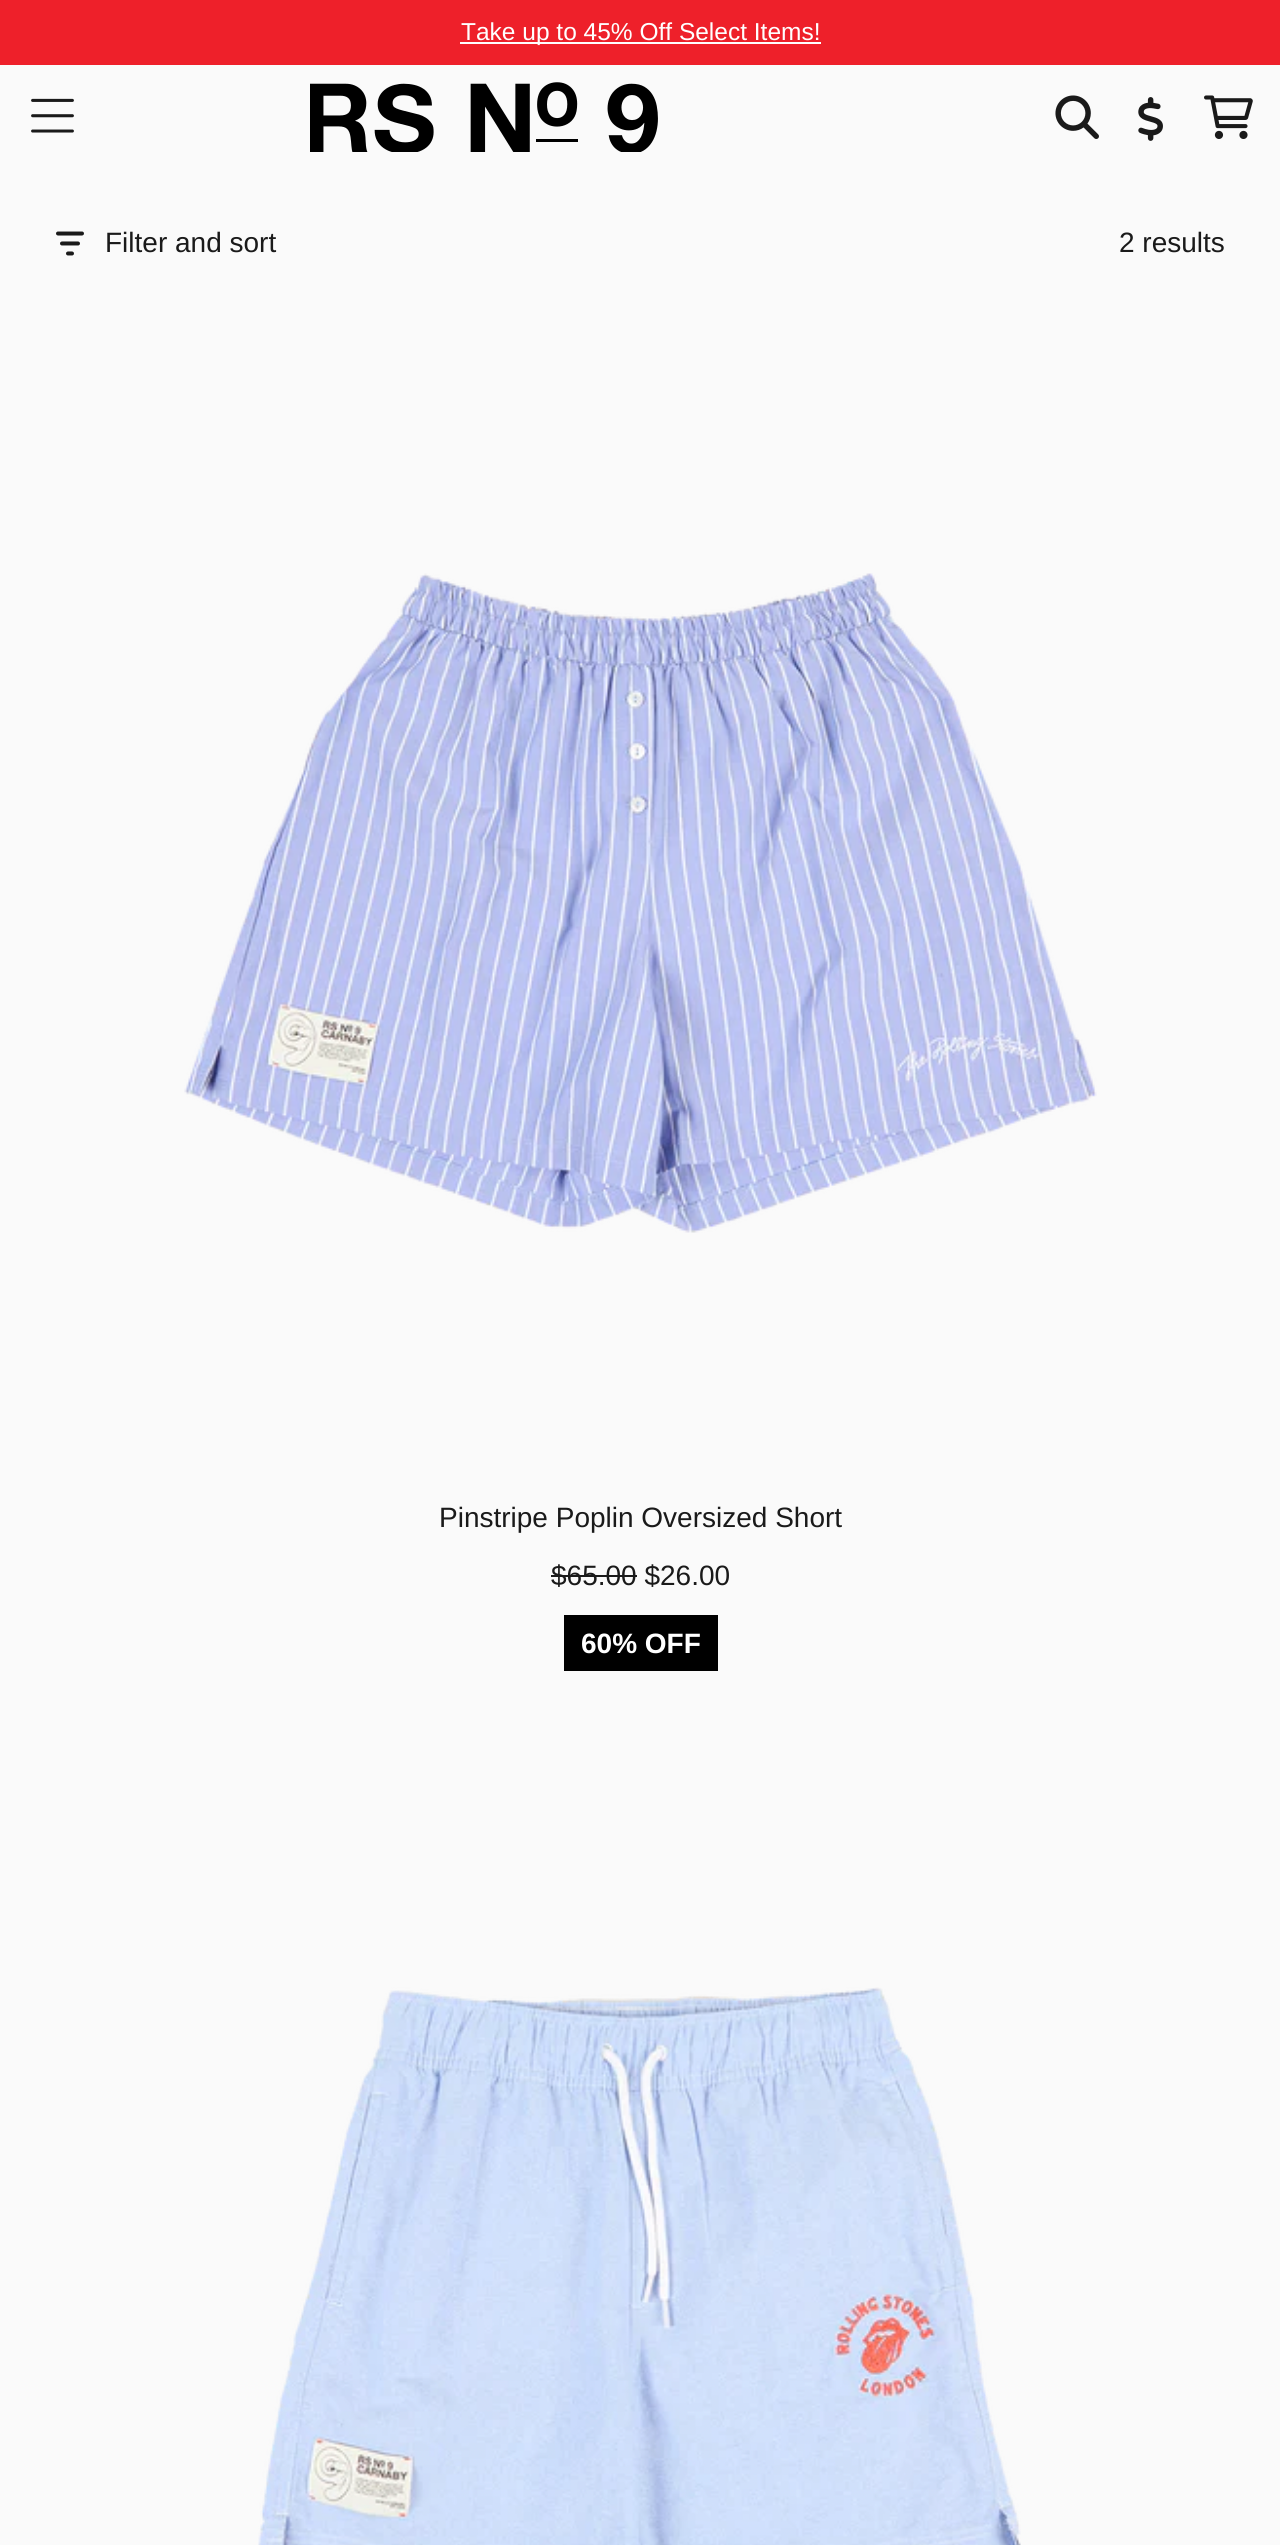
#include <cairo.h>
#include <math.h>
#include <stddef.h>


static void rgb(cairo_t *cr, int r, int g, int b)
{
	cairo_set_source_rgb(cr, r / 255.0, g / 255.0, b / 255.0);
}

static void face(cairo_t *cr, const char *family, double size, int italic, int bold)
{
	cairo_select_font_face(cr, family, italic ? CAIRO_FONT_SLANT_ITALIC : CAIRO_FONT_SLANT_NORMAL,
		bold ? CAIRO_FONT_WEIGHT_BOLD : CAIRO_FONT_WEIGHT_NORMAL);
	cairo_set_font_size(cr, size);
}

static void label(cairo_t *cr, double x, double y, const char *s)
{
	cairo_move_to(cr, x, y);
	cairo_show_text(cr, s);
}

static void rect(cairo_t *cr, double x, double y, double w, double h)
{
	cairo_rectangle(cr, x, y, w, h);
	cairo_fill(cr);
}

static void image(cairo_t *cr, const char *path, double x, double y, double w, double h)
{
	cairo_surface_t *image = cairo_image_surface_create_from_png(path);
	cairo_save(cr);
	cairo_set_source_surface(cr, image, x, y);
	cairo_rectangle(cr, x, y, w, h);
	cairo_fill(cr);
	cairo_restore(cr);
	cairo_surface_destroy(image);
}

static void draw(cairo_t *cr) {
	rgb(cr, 250, 250, 250);
	cairo_paint(cr);
	rgb(cr, 238, 32, 42);
	rect(cr, 0, 0, 1280, 65);
	rgb(cr, 255, 255, 255);
	rect(cr, 460, 42, 361, 2);
	face(cr, "Liberation Sans", 24.5, 0, 0);
	label(cr, 461, 40, "Take up to 45% Off Select Items!");
	image(cr, "image0.png", 31, 98, 43, 35);
	image(cr, "image1.png", 310, 82, 348, 70);
	image(cr, "image2.png", 1055, 95, 44, 44);
	image(cr, "image3.png", 1138, 97, 25, 44);
	image(cr, "image4.png", 1204, 95, 49, 44);
	image(cr, "image5.png", 56, 231, 28, 25);
	face(cr, "Liberation Sans", 28, 0, 0);
	rgb(cr, 26, 26, 26);
	label(cr, 105, 252, "Filter and sort");
	label(cr, 1119, 252, "2 results");
	image(cr, "image6.png", 184, 573, 913, 660);
	label(cr, 439, 1527, "Pinstripe Poplin Oversized Short");
	label(cr, 551, 1585, "$65.00 $26.00");
	rect(cr, 551, 1575, 86, 2);
	rgb(cr, 0, 0, 0);
	rect(cr, 564, 1615, 154, 56);
	face(cr, "Liberation Sans", 28, 0, 1);
	rgb(cr, 255, 255, 255);
	label(cr, 581, 1653, "60% OFF");
	image(cr, "image7.png", 258, 1987, 763, 558);
}

int main(void) {
	cairo_surface_t *surface = cairo_image_surface_create(CAIRO_FORMAT_RGB24, 1280, 2545);
	cairo_t *cr = cairo_create(surface);
	cairo_font_options_t *options = cairo_font_options_create();
	cairo_font_options_set_hint_metrics(options, CAIRO_HINT_METRICS_OFF);
	cairo_font_options_set_hint_style(options, CAIRO_HINT_STYLE_NONE);
	cairo_set_font_options(cr, options);
	cairo_set_miter_limit(cr, 4);
	draw(cr);
	cairo_surface_write_to_png(surface, "render.png");
	cairo_font_options_destroy(options);
	cairo_destroy(cr);
	cairo_surface_destroy(surface);
	return 0;
}
